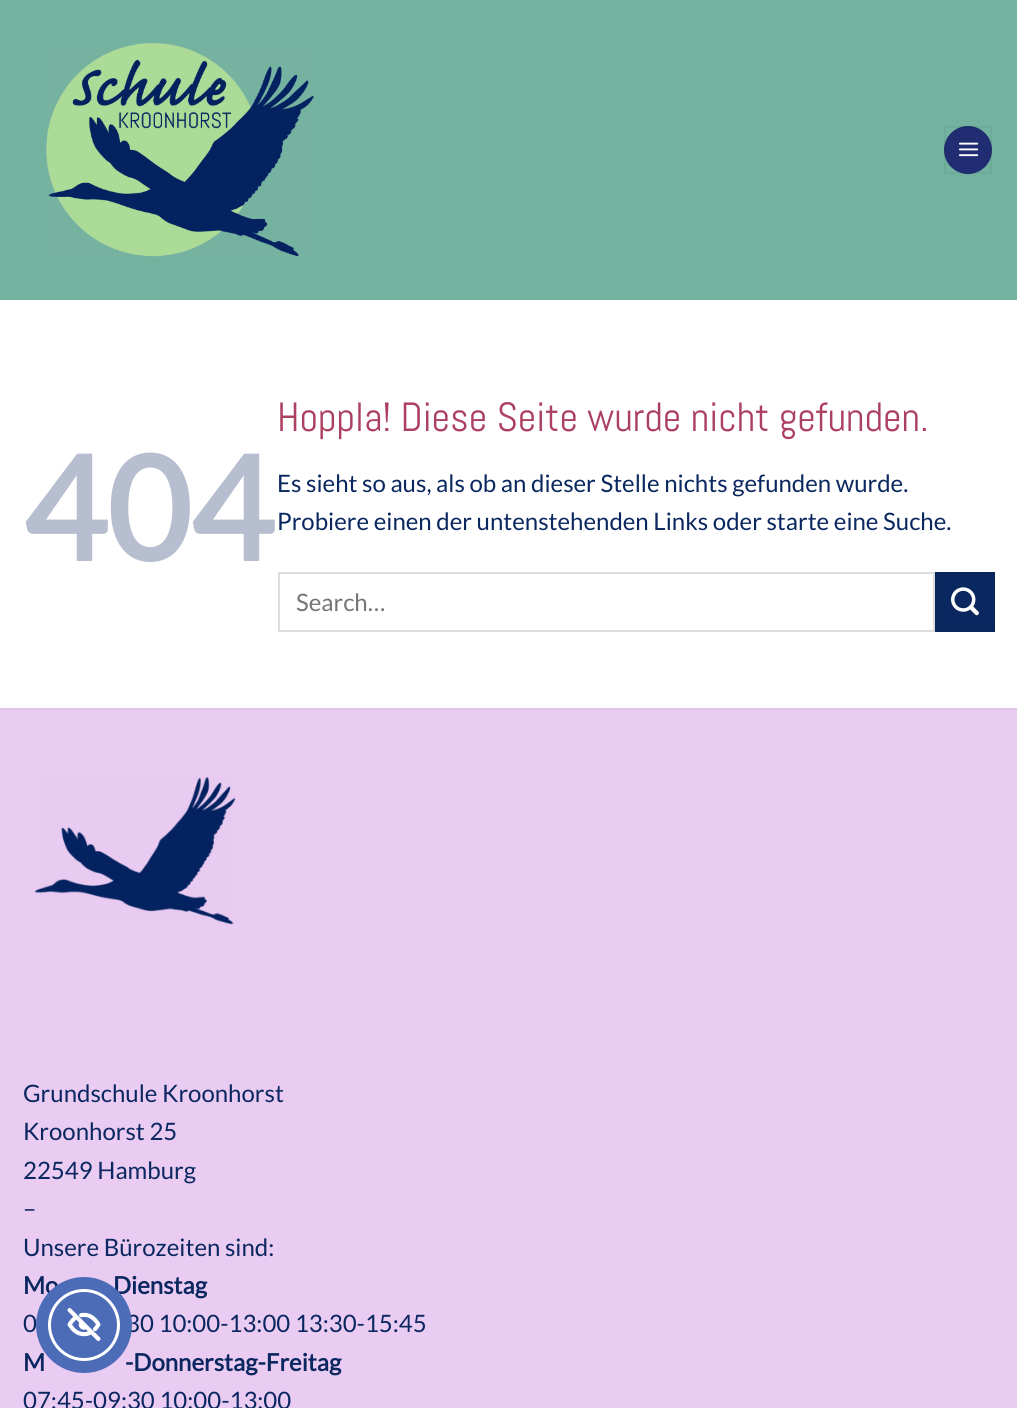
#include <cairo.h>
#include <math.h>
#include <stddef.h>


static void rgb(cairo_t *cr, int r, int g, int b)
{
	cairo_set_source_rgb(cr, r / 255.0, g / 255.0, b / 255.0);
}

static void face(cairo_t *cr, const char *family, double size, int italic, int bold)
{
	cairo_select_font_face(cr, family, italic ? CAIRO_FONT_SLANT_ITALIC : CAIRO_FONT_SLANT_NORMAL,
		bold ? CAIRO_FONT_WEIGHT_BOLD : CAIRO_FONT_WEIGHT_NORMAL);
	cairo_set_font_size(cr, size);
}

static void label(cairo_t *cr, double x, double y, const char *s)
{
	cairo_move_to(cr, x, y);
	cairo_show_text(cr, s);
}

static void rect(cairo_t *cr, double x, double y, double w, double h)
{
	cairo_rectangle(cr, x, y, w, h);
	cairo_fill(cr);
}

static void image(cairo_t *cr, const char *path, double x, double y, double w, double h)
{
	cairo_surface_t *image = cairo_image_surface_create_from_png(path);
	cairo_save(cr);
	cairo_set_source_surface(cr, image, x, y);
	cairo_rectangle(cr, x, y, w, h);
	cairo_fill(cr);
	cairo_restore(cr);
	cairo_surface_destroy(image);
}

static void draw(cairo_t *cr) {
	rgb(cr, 255, 255, 255);
	cairo_paint(cr);
	rgb(cr, 116, 178, 160);
	rect(cr, 0, 0, 1017, 300);
	image(cr, "image0.png", 46, 43, 268, 214);
	rgb(cr, 32, 45, 114);
	cairo_arc(cr, 968, 150, 24, 0, 2 * M_PI);
	cairo_fill(cr);
	cairo_rectangle(cr, 945, 127, 46, 46);
	cairo_set_source_rgba(cr, 0, 0, 0, 0.05);
	cairo_stroke(cr);
	image(cr, "image1.png", 958, 142, 21, 15);
	face(cr, "Lato", 144, 0, 1);
	rgb(cr, 182, 190, 207);
	label(cr, 23, 561, "404");
	face(cr, "Abel", 40.75, 0, 0);
	rgb(cr, 171, 64, 96);
	label(cr, 277, 431, "Hoppla! Diese Seite wurde nicht gefunden.");
	face(cr, "Lato", 24, 0, 0);
	rgb(cr, 10, 39, 95);
	label(cr, 277, 492, "Es sieht so aus, als ob an dieser Stelle nichts gefunden wurde.");
	label(cr, 277, 530, "Probiere einen der untenstehenden Links oder starte eine Suche.");
	cairo_rectangle(cr, 279, 573, 655, 58);
	rgb(cr, 221, 221, 221);
	cairo_stroke(cr);
	rgb(cr, 117, 117, 117);
	label(cr, 296, 611, "Search…");
	rgb(cr, 10, 39, 95);
	cairo_rectangle(cr, 936, 573, 58, 58);
	cairo_fill_preserve(cr);
	rgb(cr, 10, 37, 90);
	cairo_stroke(cr);
	image(cr, "image2.png", 951, 587, 28, 29);
	rgb(cr, 234, 204, 243);
	rect(cr, 0, 710, 1017, 698);
	rgb(cr, 222, 194, 231);
	rect(cr, 0, 708, 1017, 2);
	image(cr, "image3.png", 34, 777, 202, 148);
	rgb(cr, 10, 39, 95);
	label(cr, 23, 1102, "Grundschule Kroonhorst");
	label(cr, 23, 1140, "Kroonhorst 25");
	label(cr, 23, 1179, "22549 Hamburg");
	label(cr, 23, 1217, "–");
	label(cr, 23, 1256, "Unsere Bürozeiten sind:");
	face(cr, "Lato", 24, 0, 1);
	label(cr, 23, 1294, "Mo");
	label(cr, 113, 1294, "Dienstag");
	face(cr, "Lato", 24, 0, 0);
	label(cr, 23, 1332, "0");
	label(cr, 126, 1332, "30 10:00-13:00 13:30-15:45");
	face(cr, "Lato", 24, 0, 1);
	label(cr, 23, 1371, "M");
	label(cr, 125, 1371, "-Donnerstag-Freitag");
	face(cr, "Lato", 24, 0, 0);
	label(cr, 23, 1409, "07:45-09:30 10:00-13:00");
	rgb(cr, 76, 108, 183);
	cairo_new_path(cr);
	cairo_arc(cr, 84, 1325, 48, 0, 2 * M_PI);
	cairo_fill(cr);
	cairo_arc(cr, 84, 1325, 34.5, 0, 2 * M_PI);
	rgb(cr, 255, 255, 255);
	cairo_set_line_width(cr, 3);
	cairo_stroke(cr);
	image(cr, "image4.png", 67, 1308, 34, 33);
}

int main(void) {
	cairo_surface_t *surface = cairo_image_surface_create(CAIRO_FORMAT_RGB24, 1017, 1408);
	cairo_t *cr = cairo_create(surface);
	cairo_font_options_t *options = cairo_font_options_create();
	cairo_font_options_set_hint_metrics(options, CAIRO_HINT_METRICS_OFF);
	cairo_font_options_set_hint_style(options, CAIRO_HINT_STYLE_NONE);
	cairo_set_font_options(cr, options);
	cairo_set_miter_limit(cr, 4);
	draw(cr);
	cairo_surface_write_to_png(surface, "render.png");
	cairo_font_options_destroy(options);
	cairo_destroy(cr);
	cairo_surface_destroy(surface);
	return 0;
}
